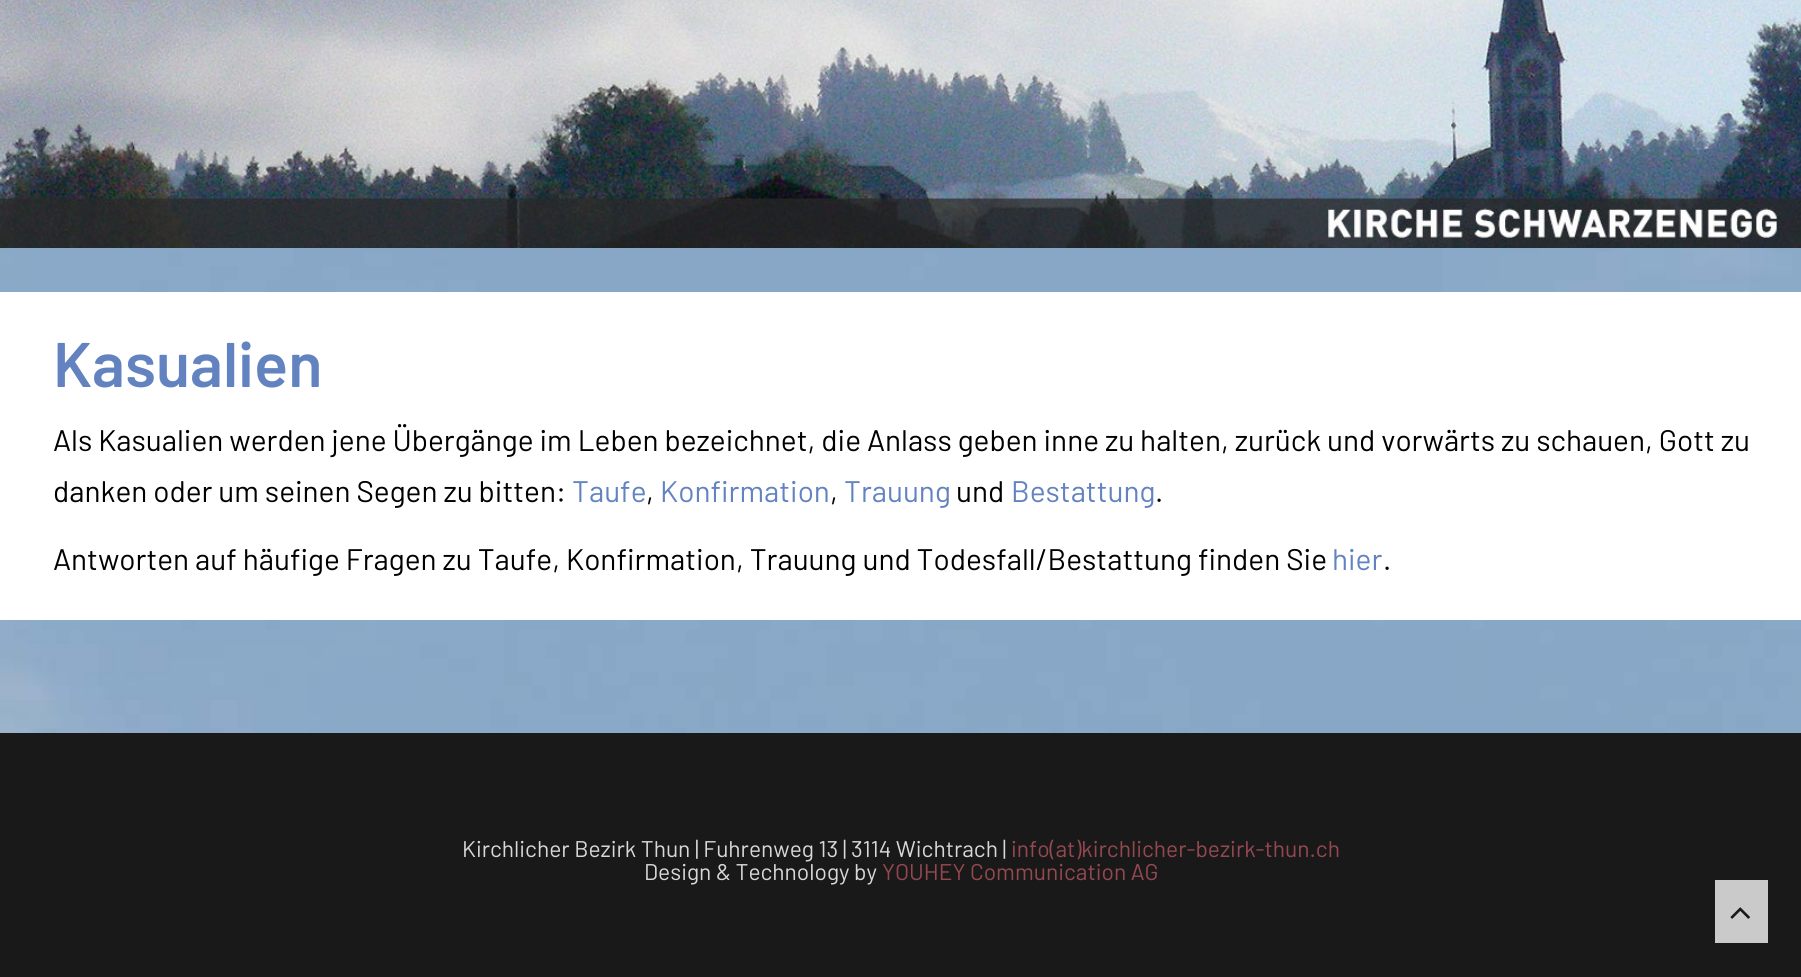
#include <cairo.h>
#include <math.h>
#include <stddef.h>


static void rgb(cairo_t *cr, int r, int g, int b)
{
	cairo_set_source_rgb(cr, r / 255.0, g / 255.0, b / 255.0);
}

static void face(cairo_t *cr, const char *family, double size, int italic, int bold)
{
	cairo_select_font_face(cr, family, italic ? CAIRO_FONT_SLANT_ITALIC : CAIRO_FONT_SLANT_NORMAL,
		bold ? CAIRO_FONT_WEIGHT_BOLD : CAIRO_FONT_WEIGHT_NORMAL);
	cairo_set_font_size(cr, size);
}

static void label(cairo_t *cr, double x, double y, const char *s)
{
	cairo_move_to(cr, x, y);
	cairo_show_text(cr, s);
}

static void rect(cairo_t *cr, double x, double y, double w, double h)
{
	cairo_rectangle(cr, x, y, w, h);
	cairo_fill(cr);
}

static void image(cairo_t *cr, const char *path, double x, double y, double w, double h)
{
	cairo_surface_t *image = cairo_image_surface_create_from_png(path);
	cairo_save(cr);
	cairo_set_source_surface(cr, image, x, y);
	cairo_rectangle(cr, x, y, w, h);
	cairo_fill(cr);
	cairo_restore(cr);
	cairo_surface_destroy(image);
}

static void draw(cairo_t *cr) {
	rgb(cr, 255, 255, 255);
	cairo_paint(cr);
	image(cr, "image0.png", 0, 248, 1801, 485);
	image(cr, "image1.png", 0, 0, 1801, 248);
	rgb(cr, 255, 255, 255);
	rect(cr, 0, 292, 1801, 328);
	face(cr, "Barlow SemiBold", 63, 0, 0);
	rgb(cr, 99, 131, 192);
	label(cr, 53, 387, "Kasualien");
	face(cr, "Barlow", 29.75, 0, 0);
	rgb(cr, 0, 0, 0);
	label(cr, 53, 451, "Als Kasualien werden jene Übergänge im Leben bezeichnet, die Anlass geben inne zu halten, zurück und vorwärts zu schauen, Gott zu");
	label(cr, 53, 502, "danken oder um seinen Segen zu bitten:");
	rgb(cr, 99, 131, 192);
	label(cr, 572, 502, "Taufe");
	rgb(cr, 0, 0, 0);
	label(cr, 646, 502, ",");
	rgb(cr, 99, 131, 192);
	label(cr, 660, 502, "Konfirmation");
	rgb(cr, 0, 0, 0);
	label(cr, 830, 502, ",");
	rgb(cr, 99, 131, 192);
	label(cr, 844, 502, "Trauung");
	rgb(cr, 0, 0, 0);
	label(cr, 956, 502, "und");
	rgb(cr, 99, 131, 192);
	label(cr, 1011, 502, "Bestattung");
	rgb(cr, 0, 0, 0);
	label(cr, 1155, 502, ".");
	label(cr, 53, 570, "Antworten auf häufige Fragen zu Taufe, Konfirmation, Trauung und Todesfall/Bestattung finden Sie");
	rgb(cr, 99, 131, 192);
	label(cr, 1332, 570, "hier");
	rgb(cr, 0, 0, 0);
	label(cr, 1383, 570, ".");
	rgb(cr, 25, 25, 25);
	rect(cr, 0, 733, 1801, 244);
	face(cr, "Barlow", 22.75, 0, 0);
	rgb(cr, 216, 216, 216);
	label(cr, 462, 857, "Kirchlicher Bezirk Thun | Fuhrenweg 13 | 3114 Wichtrach |");
	rgb(cr, 148, 73, 80);
	label(cr, 1011, 857, "info(at)kirchlicher-bezirk-thun.ch");
	rgb(cr, 216, 216, 216);
	label(cr, 644, 880, "Design & Technology by");
	rgb(cr, 148, 73, 80);
	label(cr, 882, 880, "YOUHEY Communication AG");
	rgb(cr, 202, 202, 202);
	rect(cr, 1715, 880, 53, 63);
	image(cr, "image2.png", 1730, 907, 20, 12);
}

int main(void) {
	cairo_surface_t *surface = cairo_image_surface_create(CAIRO_FORMAT_RGB24, 1801, 977);
	cairo_t *cr = cairo_create(surface);
	cairo_font_options_t *options = cairo_font_options_create();
	cairo_font_options_set_hint_metrics(options, CAIRO_HINT_METRICS_OFF);
	cairo_font_options_set_hint_style(options, CAIRO_HINT_STYLE_NONE);
	cairo_set_font_options(cr, options);
	cairo_set_miter_limit(cr, 4);
	draw(cr);
	cairo_surface_write_to_png(surface, "render.png");
	cairo_font_options_destroy(options);
	cairo_destroy(cr);
	cairo_surface_destroy(surface);
	return 0;
}
